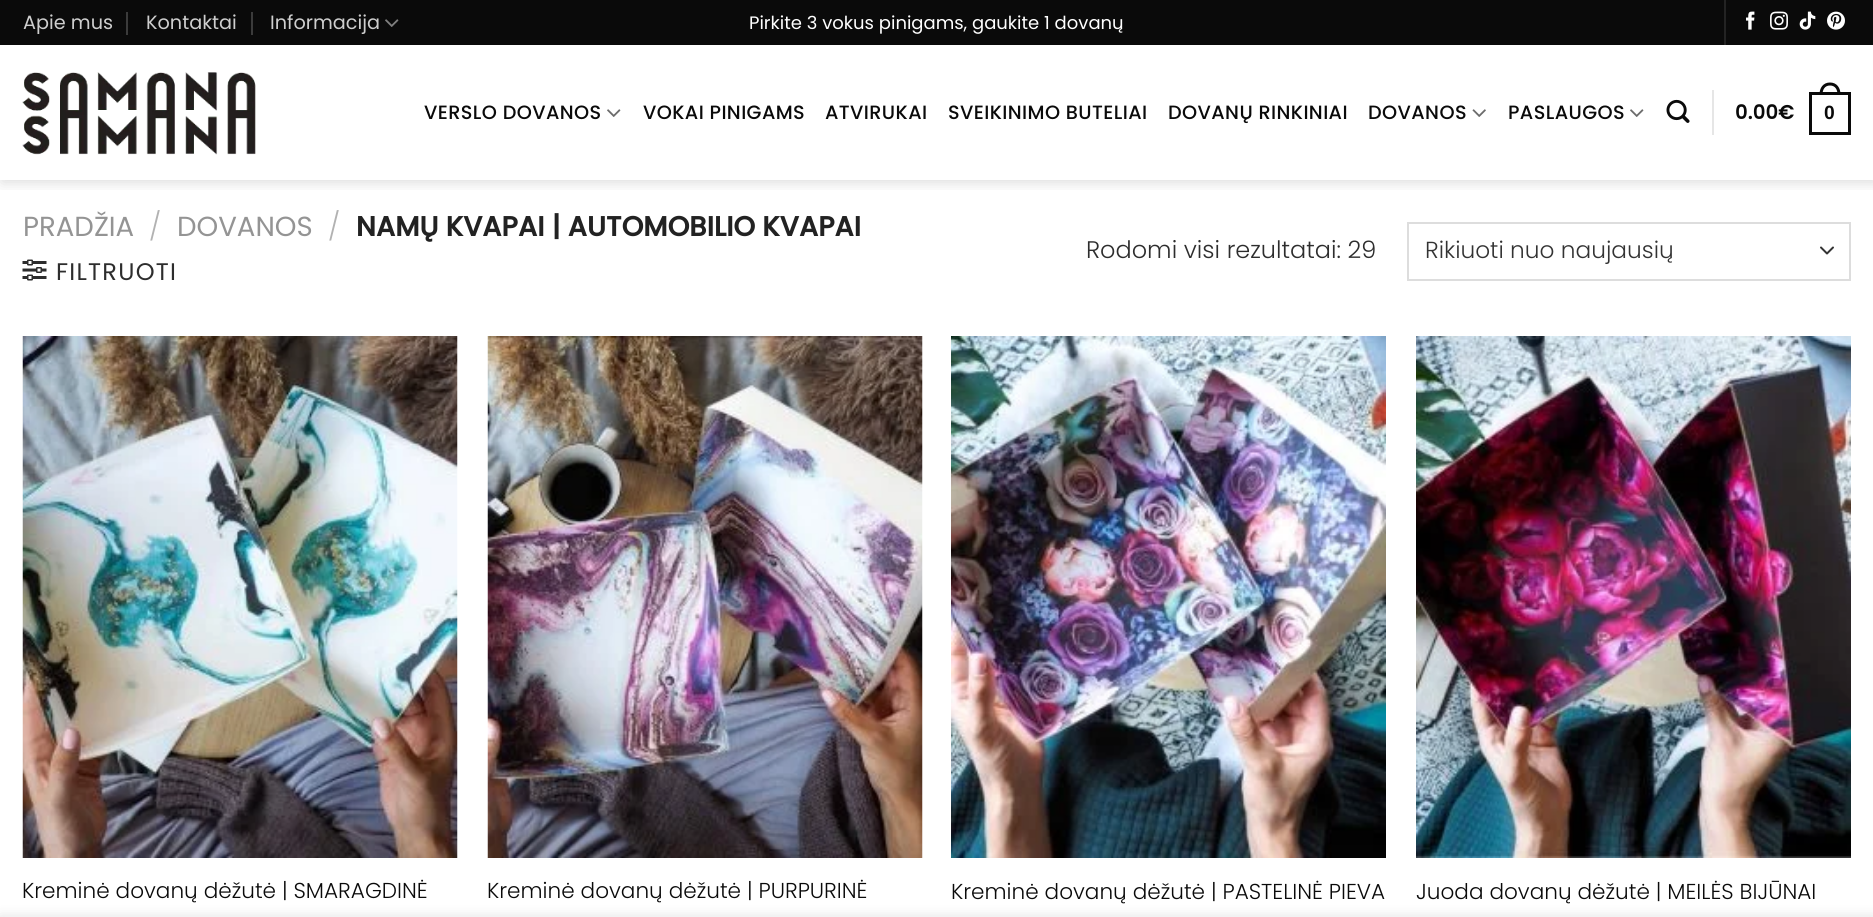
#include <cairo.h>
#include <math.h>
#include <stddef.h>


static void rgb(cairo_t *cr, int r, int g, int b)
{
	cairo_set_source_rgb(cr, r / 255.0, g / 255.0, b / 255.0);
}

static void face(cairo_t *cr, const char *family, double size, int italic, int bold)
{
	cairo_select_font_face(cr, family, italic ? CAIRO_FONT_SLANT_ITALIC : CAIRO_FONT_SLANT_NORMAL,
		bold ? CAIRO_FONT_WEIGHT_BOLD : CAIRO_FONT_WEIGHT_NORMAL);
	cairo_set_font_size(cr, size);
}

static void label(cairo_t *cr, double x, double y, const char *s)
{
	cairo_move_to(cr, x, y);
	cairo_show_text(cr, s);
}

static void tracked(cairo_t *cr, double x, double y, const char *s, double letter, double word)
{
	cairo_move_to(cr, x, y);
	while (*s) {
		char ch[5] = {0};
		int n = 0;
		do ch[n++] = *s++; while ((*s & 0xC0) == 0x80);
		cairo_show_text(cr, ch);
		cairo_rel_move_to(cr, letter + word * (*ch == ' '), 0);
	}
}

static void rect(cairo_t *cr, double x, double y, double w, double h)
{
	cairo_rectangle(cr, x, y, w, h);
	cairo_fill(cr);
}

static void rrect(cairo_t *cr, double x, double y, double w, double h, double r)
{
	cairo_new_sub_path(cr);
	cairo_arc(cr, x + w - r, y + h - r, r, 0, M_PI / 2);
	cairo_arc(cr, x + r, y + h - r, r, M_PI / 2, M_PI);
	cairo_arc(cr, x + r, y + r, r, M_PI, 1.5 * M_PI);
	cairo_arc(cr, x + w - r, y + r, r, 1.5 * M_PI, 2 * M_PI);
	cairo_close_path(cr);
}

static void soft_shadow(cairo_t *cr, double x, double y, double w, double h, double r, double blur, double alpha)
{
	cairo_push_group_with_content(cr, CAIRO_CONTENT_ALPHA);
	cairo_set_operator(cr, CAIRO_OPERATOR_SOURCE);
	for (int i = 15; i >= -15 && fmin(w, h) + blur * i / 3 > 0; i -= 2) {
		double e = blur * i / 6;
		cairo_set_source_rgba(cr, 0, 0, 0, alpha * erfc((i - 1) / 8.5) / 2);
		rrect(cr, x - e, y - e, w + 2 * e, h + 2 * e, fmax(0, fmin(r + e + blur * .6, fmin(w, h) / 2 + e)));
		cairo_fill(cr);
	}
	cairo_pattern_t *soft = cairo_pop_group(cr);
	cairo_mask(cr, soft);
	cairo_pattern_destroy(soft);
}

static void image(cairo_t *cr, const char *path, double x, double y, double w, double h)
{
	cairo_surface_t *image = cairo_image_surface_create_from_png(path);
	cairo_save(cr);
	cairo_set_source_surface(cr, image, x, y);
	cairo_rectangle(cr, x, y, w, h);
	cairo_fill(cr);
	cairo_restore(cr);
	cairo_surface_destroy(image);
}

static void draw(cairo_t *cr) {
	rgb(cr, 255, 255, 255);
	cairo_paint(cr);
	cairo_save(cr);
	cairo_rectangle(cr, 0, 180, 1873, 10);
	cairo_clip(cr);
	rgb(cr, 0, 0, 0);
	soft_shadow(cr, 2, 2, 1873, 180, 0, 7.5, 0.15);
	cairo_restore(cr);
	rgb(cr, 10, 10, 10);
	rect(cr, 0, 0, 1873, 45);
	face(cr, "Poppins", 19.25, 0, 0);
	rgb(cr, 206, 206, 206);
	label(cr, 23, 29, "Apie mus");
	rgb(cr, 59, 59, 59);
	rect(cr, 126, 12, 2, 23);
	rgb(cr, 206, 206, 206);
	label(cr, 146, 29, "Kontaktai");
	rgb(cr, 59, 59, 59);
	rect(cr, 251, 12, 2, 23);
	rgb(cr, 206, 206, 206);
	label(cr, 270, 29, "Informacija");
	image(cr, "image0.png", 385, 19, 14, 8);
	face(cr, "Poppins", 18, 0, 0);
	rgb(cr, 255, 255, 255);
	label(cr, 749, 29, "Pirkite 3 vokus pinigams, gaukite 1 dovanų");
	rgb(cr, 35, 35, 35);
	rect(cr, 1724, 0, 2, 45);
	image(cr, "image1.png", 1746, 11, 9, 19);
	image(cr, "image2.png", 1770, 11, 18, 19);
	image(cr, "image3.png", 1799, 11, 17, 19);
	image(cr, "image4.png", 1827, 11, 18, 19);
	image(cr, "image5.png", 22, 72, 234, 83);
	face(cr, "Poppins Medium", 19.25, 0, 0);
	rgb(cr, 10, 10, 10);
	tracked(cr, 424, 119, "VERSLO DOVANOS", 0.4, 0);
	image(cr, "image6.png", 607, 109, 14, 8);
	tracked(cr, 643, 119, "VOKAI PINIGAMS", 0.4, 0);
	tracked(cr, 825, 119, "ATVIRUKAI", 0.4, 0);
	tracked(cr, 948, 119, "SVEIKINIMO BUTELIAI", 0.4, 0);
	tracked(cr, 1168, 119, "DOVANŲ RINKINIAI", 0.4, 0);
	tracked(cr, 1368, 119, "DOVANOS", 0.4, 0);
	image(cr, "image7.png", 1472, 109, 14, 8);
	tracked(cr, 1508, 119, "PASLAUGOS", 0.4, 0);
	image(cr, "image6.png", 1630, 109, 14, 8);
	image(cr, "image8.png", 1666, 99, 24, 24);
	rgb(cr, 230, 230, 230);
	rect(cr, 1712, 90, 2, 45);
	face(cr, "Poppins", 19.25, 0, 1);
	rgb(cr, 10, 10, 10);
	tracked(cr, 1735, 119, "0.00€", 0.4, 0);
	cairo_rectangle(cr, 1810.5, 93.5, 39, 40);
	cairo_set_line_width(cr, 3);
	cairo_stroke(cr);
	cairo_set_fill_rule(cr, CAIRO_FILL_RULE_EVEN_ODD);
	cairo_new_path(cr);
	cairo_move_to(cr, 1830, 82.5);
	cairo_curve_to(cr, 1837, 82.5, 1840.5, 88, 1840.5, 94.5);
	cairo_line_to(cr, 1819.5, 94.5);
	cairo_curve_to(cr, 1819.5, 88, 1823, 82.5, 1830, 82.5);
	cairo_close_path(cr);
	cairo_move_to(cr, 1830, 85.5);
	cairo_curve_to(cr, 1835.5, 85.5, 1837.5, 90, 1837.5, 94.5);
	cairo_line_to(cr, 1822.5, 94.5);
	cairo_curve_to(cr, 1822.5, 90, 1824.5, 85.5, 1830, 85.5);
	cairo_close_path(cr);
	cairo_fill(cr);
	face(cr, "Liberation Sans", 19.25, 0, 1);
	tracked(cr, 1824, 119, "0", 0.4, 0);
	face(cr, "Poppins", 27.6, 0, 0);
	rgb(cr, 148, 148, 148);
	label(cr, 23, 236, "PRADŽIA");
	face(cr, "Poppins Light", 27.6, 0, 0);
	rgb(cr, 178, 178, 178);
	label(cr, 149, 236, "/");
	face(cr, "Poppins", 27.6, 0, 0);
	rgb(cr, 148, 148, 148);
	label(cr, 177, 236, "DOVANOS");
	face(cr, "Poppins Light", 27.6, 0, 0);
	rgb(cr, 178, 178, 178);
	label(cr, 328, 236, "/");
	face(cr, "Poppins", 27.6, 0, 1);
	rgb(cr, 34, 34, 34);
	label(cr, 356, 236, "NAMŲ KVAPAI | AUTOMOBILIO KVAPAI");
	image(cr, "image9.png", 22, 259, 25, 22);
	face(cr, "Poppins", 24, 0, 0);
	rgb(cr, 45, 45, 45);
	tracked(cr, 56, 280, "FILTRUOTI", 1.25, 0);
	face(cr, "Poppins Light", 24, 0, 0);
	label(cr, 1086, 258, "Rodomi visi rezultatai: 29");
	cairo_new_path(cr);
	cairo_move_to(cr, 1821, 247.5);
	cairo_line_to(cr, 1827, 253.5);
	cairo_line_to(cr, 1833, 247.5);
	rgb(cr, 51, 51, 51);
	cairo_set_line_width(cr, 2);
	cairo_set_line_cap(cr, CAIRO_LINE_CAP_ROUND);
	cairo_set_line_join(cr, CAIRO_LINE_JOIN_ROUND);
	cairo_stroke(cr);
	cairo_rectangle(cr, 1408, 223, 442, 57);
	rgb(cr, 221, 221, 221);
	cairo_set_line_cap(cr, CAIRO_LINE_CAP_BUTT);
	cairo_set_line_join(cr, CAIRO_LINE_JOIN_MITER);
	cairo_stroke(cr);
	face(cr, "Poppins Light", 23.25, 0, 0);
	rgb(cr, 51, 51, 51);
	label(cr, 1425, 258, "Rikiuoti nuo naujausių");
	image(cr, "image10.png", 22, 336, 436, 522);
	face(cr, "Poppins Light", 21.6, 0, 0);
	rgb(cr, 10, 10, 10);
	label(cr, 22, 898, "Kreminė dovanų dėžutė | SMARAGDINĖ");
	image(cr, "image11.png", 487, 336, 436, 522);
	label(cr, 487, 898, "Kreminė dovanų dėžutė | PURPURINĖ");
	image(cr, "image12.png", 951, 336, 435, 522);
	label(cr, 951, 899, "Kreminė dovanų dėžutė | PASTELINĖ PIEVA");
	image(cr, "image13.png", 1416, 336, 435, 522);
	label(cr, 1416, 899, "Juoda dovanų dėžutė | MEILĖS BIJŪNAI");
	rgb(cr, 0, 0, 0);
	soft_shadow(cr, 0, 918, 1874, 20, 0, 7, 0.14);
}

int main(void) {
	cairo_surface_t *surface = cairo_image_surface_create(CAIRO_FORMAT_RGB24, 1873, 917);
	cairo_t *cr = cairo_create(surface);
	cairo_font_options_t *options = cairo_font_options_create();
	cairo_font_options_set_hint_metrics(options, CAIRO_HINT_METRICS_OFF);
	cairo_font_options_set_hint_style(options, CAIRO_HINT_STYLE_NONE);
	cairo_set_font_options(cr, options);
	cairo_set_miter_limit(cr, 4);
	draw(cr);
	cairo_surface_write_to_png(surface, "render.png");
	cairo_font_options_destroy(options);
	cairo_destroy(cr);
	cairo_surface_destroy(surface);
	return 0;
}
